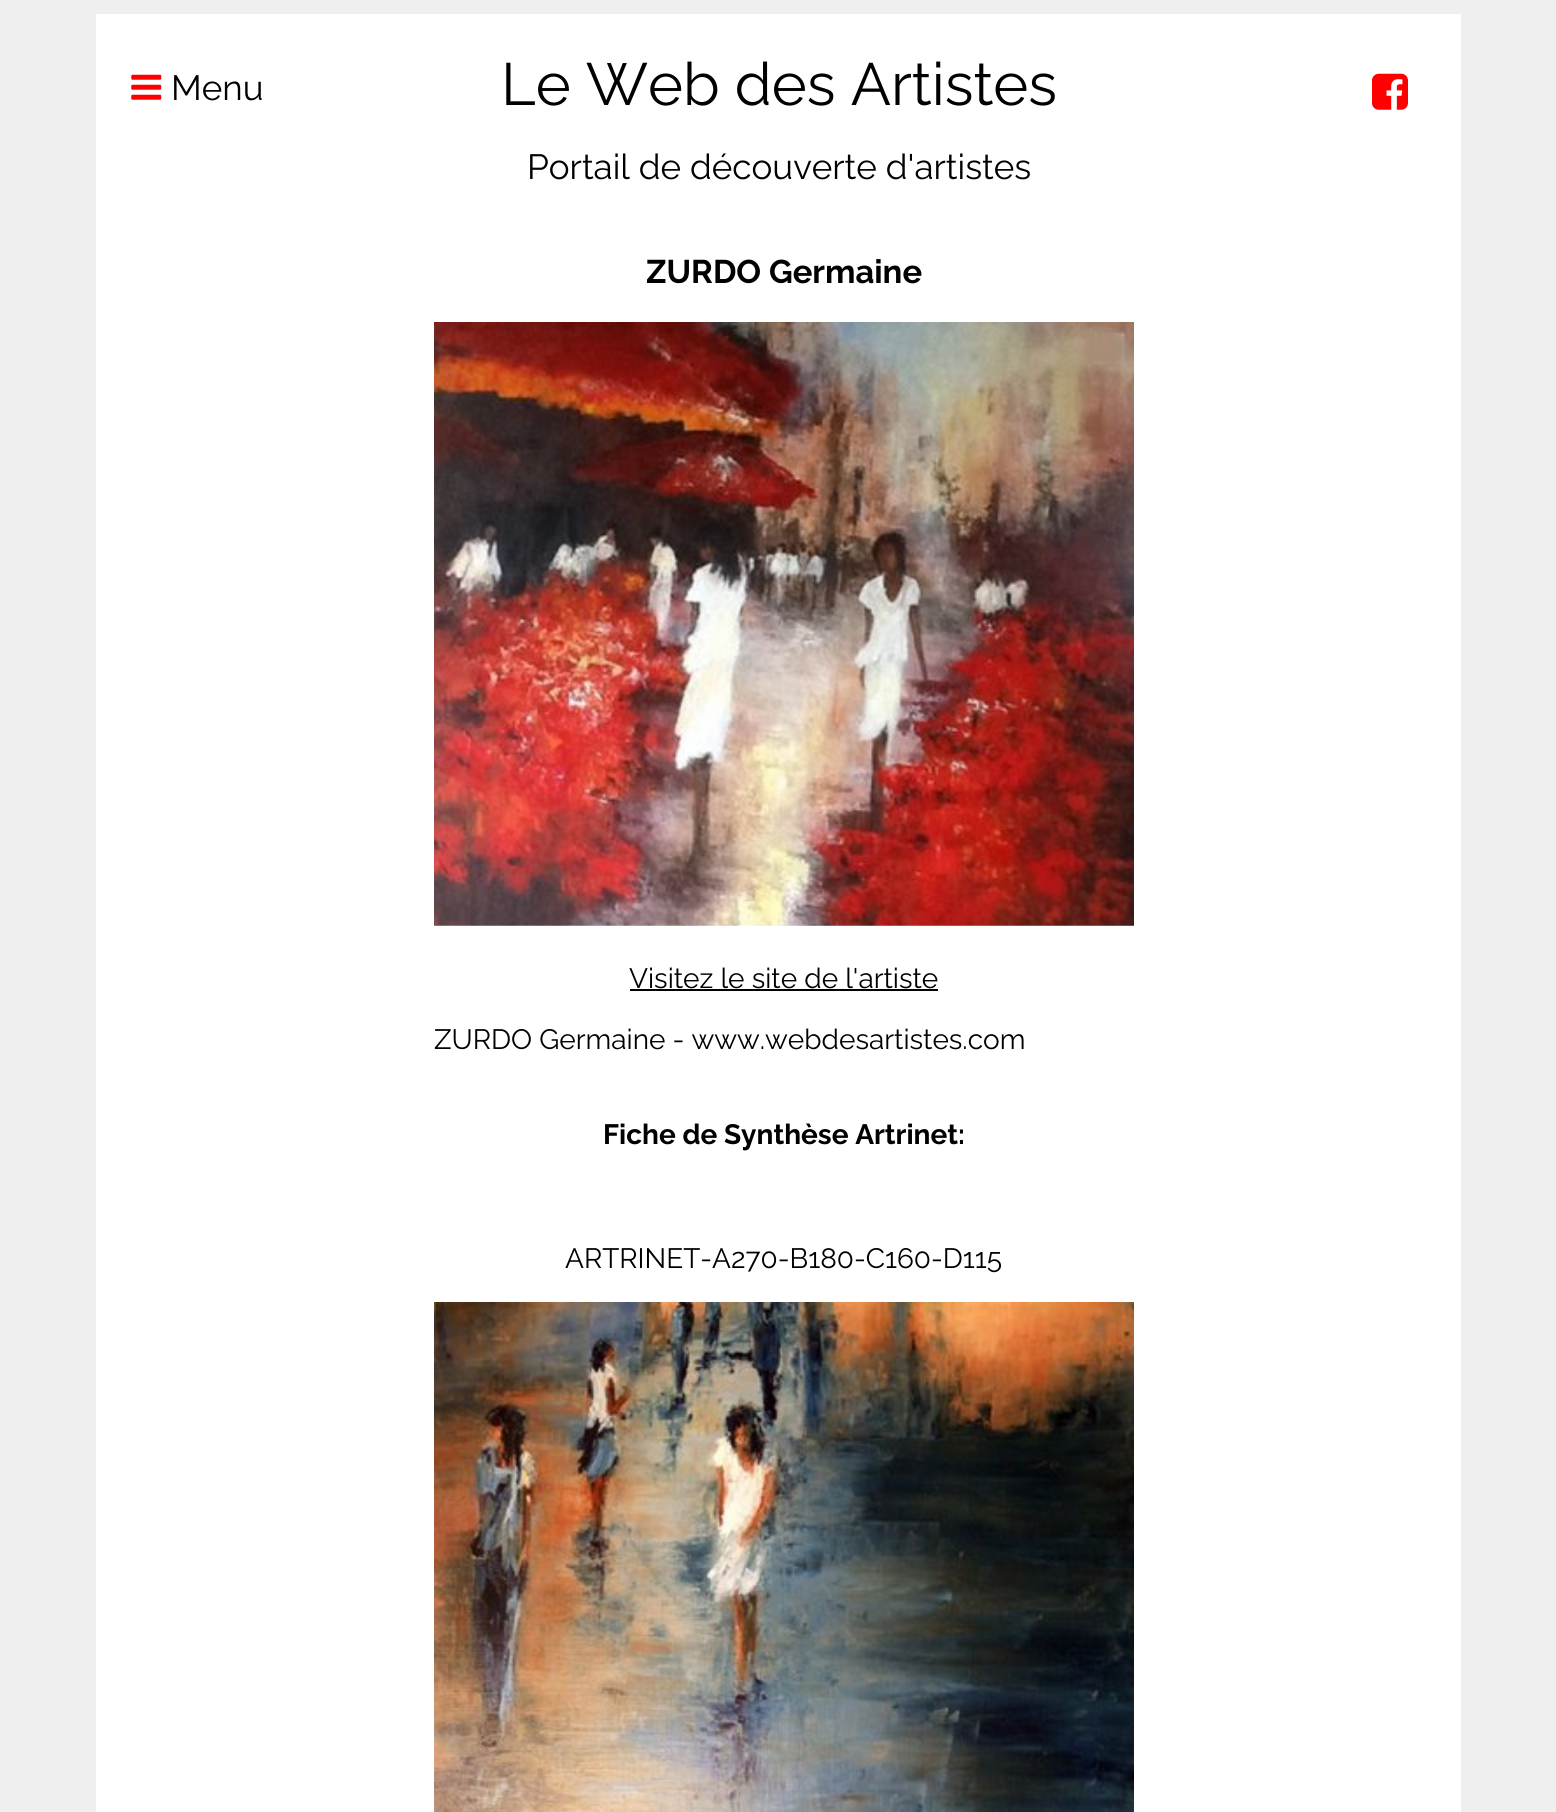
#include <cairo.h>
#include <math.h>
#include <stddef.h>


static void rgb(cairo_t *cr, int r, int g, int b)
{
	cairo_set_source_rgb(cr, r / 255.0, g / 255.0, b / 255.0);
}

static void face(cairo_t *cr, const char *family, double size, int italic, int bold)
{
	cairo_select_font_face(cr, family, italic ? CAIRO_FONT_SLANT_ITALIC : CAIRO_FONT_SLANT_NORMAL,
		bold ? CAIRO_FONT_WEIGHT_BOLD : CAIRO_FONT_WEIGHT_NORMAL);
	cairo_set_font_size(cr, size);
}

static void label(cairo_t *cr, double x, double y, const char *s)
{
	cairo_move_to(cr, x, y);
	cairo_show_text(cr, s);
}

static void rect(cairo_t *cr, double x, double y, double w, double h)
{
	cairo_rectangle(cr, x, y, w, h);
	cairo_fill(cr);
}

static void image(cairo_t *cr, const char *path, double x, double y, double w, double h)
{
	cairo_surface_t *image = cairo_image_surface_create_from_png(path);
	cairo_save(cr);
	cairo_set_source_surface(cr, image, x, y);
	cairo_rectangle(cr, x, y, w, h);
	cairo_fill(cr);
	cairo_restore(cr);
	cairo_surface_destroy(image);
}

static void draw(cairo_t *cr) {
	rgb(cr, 239, 239, 239);
	cairo_paint(cr);
	rgb(cr, 255, 255, 255);
	rect(cr, 96, 14, 1365, 1798);
	image(cr, "image0.png", 131, 74, 31, 26);
	face(cr, "Raleway", 35, 0, 0);
	rgb(cr, 0, 0, 0);
	label(cr, 171, 100, "Menu");
	face(cr, "Raleway", 59.5, 0, 0);
	label(cr, 501, 105, "Le Web des Artistes");
	image(cr, "image1.png", 1372, 73, 36, 37);
	face(cr, "Raleway", 35, 0, 0);
	label(cr, 527, 179, "Portail de découverte d'artistes");
	face(cr, "Raleway", 32.75, 0, 1);
	label(cr, 646, 283, "ZURDO Germaine");
	image(cr, "image2.png", 434, 322, 700, 604);
	face(cr, "Raleway", 28, 0, 0);
	label(cr, 629, 988, "Visitez le site de l'artiste");
	rect(cr, 630, 989, 308, 2);
	label(cr, 434, 1049, "ZURDO Germaine - www.webdesartistes.com");
	face(cr, "Raleway", 28, 0, 1);
	label(cr, 603, 1144, "Fiche de Synthèse Artrinet:");
	face(cr, "Raleway", 28, 0, 0);
	label(cr, 565, 1268, "ARTRINET-A270-B180-C160-D115");
	image(cr, "image3.png", 434, 1302, 700, 510);
}

int main(void) {
	cairo_surface_t *surface = cairo_image_surface_create(CAIRO_FORMAT_RGB24, 1556, 1812);
	cairo_t *cr = cairo_create(surface);
	cairo_font_options_t *options = cairo_font_options_create();
	cairo_font_options_set_hint_metrics(options, CAIRO_HINT_METRICS_OFF);
	cairo_font_options_set_hint_style(options, CAIRO_HINT_STYLE_NONE);
	cairo_set_font_options(cr, options);
	cairo_set_miter_limit(cr, 4);
	draw(cr);
	cairo_surface_write_to_png(surface, "render.png");
	cairo_font_options_destroy(options);
	cairo_destroy(cr);
	cairo_surface_destroy(surface);
	return 0;
}
